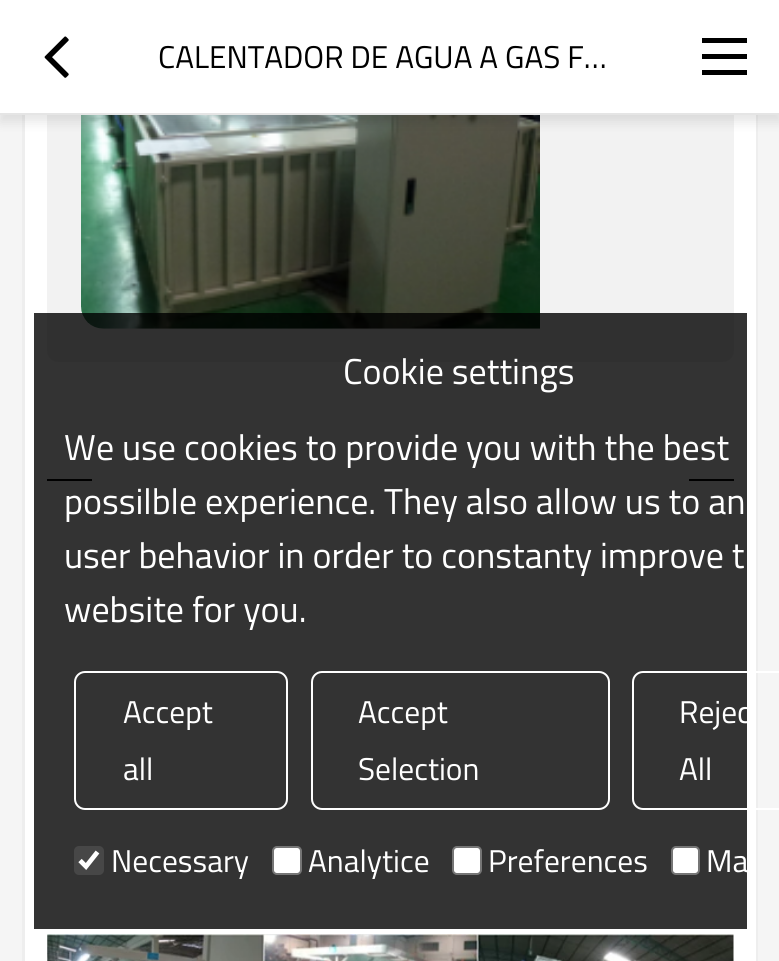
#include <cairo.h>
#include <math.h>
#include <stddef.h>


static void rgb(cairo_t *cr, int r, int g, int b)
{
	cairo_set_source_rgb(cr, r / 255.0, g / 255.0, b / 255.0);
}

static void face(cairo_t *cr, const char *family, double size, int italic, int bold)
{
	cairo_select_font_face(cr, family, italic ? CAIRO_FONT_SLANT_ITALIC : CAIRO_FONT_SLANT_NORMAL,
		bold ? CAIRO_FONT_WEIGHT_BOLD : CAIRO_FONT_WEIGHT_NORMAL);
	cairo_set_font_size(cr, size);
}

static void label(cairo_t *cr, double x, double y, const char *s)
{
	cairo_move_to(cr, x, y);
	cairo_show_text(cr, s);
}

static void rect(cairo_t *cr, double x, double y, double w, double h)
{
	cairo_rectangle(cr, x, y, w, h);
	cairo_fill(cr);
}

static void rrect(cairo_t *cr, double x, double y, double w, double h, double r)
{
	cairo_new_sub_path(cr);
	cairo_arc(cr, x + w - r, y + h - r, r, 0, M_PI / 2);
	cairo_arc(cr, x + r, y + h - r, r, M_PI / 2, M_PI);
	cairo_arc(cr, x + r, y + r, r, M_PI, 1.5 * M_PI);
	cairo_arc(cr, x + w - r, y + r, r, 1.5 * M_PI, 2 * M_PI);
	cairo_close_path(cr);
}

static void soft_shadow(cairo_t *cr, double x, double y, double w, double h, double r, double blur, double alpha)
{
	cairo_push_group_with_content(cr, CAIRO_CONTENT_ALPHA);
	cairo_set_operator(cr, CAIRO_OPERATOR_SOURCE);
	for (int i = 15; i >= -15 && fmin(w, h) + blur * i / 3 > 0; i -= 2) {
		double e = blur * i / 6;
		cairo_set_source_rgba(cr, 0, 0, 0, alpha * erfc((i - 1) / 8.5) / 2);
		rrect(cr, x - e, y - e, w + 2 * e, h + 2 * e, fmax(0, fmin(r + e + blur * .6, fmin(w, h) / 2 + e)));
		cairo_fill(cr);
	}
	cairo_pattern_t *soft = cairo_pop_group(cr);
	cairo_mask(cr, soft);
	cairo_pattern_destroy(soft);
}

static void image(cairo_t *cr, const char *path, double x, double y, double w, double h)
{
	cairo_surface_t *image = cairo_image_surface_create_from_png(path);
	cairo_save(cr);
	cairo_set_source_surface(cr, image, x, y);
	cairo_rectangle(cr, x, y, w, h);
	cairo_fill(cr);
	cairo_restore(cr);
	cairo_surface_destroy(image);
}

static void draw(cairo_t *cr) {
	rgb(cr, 245, 245, 245);
	cairo_paint(cr);
	rgb(cr, 255, 255, 255);
	rect(cr, 25, 115, 731, 846);
	rgb(cr, 238, 238, 238);
	cairo_set_fill_rule(cr, CAIRO_FILL_RULE_EVEN_ODD);
	cairo_new_path(cr);
	cairo_move_to(cr, 45, -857);
	cairo_line_to(cr, 736, -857);
	cairo_curve_to(cr, 748, -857, 758, -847, 758, -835);
	cairo_line_to(cr, 758, 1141);
	cairo_curve_to(cr, 758, 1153, 748, 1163, 736, 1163);
	cairo_line_to(cr, 45, 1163);
	cairo_curve_to(cr, 33, 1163, 22, 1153, 22, 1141);
	cairo_line_to(cr, 22, -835);
	cairo_curve_to(cr, 22, -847, 33, -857, 45, -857);
	cairo_close_path(cr);
	cairo_move_to(cr, 45, -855);
	cairo_line_to(cr, 736, -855);
	cairo_curve_to(cr, 747, -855, 756, -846, 756, -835);
	cairo_line_to(cr, 756, 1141);
	cairo_curve_to(cr, 756, 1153, 747, 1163, 736, 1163);
	cairo_line_to(cr, 45, 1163);
	cairo_curve_to(cr, 34, 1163, 25, 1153, 25, 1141);
	cairo_line_to(cr, 25, -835);
	cairo_curve_to(cr, 25, -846, 34, -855, 45, -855);
	cairo_close_path(cr);
	cairo_fill(cr);
	rgb(cr, 242, 242, 242);
	rrect(cr, 47, -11, 687, 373, 11);
	cairo_fill(cr);
	image(cr, "image0.png", 81, 115, 459, 214);
	rgb(cr, 0, 0, 0);
	rect(cr, 47, 479, 687, 2);
	rgb(cr, 255, 255, 255);
	rect(cr, 92, 479, 597, 2);
	image(cr, "image1.png", 47, 934, 687, 27);
	rgb(cr, 0, 0, 0);
	soft_shadow(cr, 0, 7, 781, 115, 0, 5.5, 0.1);
	rgb(cr, 255, 255, 255);
	rect(cr, 0, 0, 779, 113);
	rgb(cr, 229, 229, 229);
	rect(cr, 0, 113, 779, 2);
	image(cr, "image2.png", 44, 36, 25, 42);
	face(cr, "Titillium Web", 31.5, 0, 0);
	rgb(cr, 0, 0, 0);
	label(cr, 158, 68, "CALENTADOR DE AGUA A GAS F…");
	rect(cr, 702, 38, 45, 5);
	rect(cr, 702, 54, 45, 5);
	rect(cr, 702, 70, 45, 5);
	cairo_set_source_rgba(cr, 0, 0, 0, 0.8);
	rect(cr, 34, 313, 713, 616);
	face(cr, "Titillium Web", 36, 0, 0);
	rgb(cr, 255, 255, 255);
	label(cr, 343, 384, "Cookie settings");
	label(cr, 64, 460, "We use cookies to provide you with the best");
	label(cr, 64, 514, "possilble experience. They also allow us to an");
	label(cr, 64, 568, "user behavior in order to constanty improve t");
	label(cr, 64, 622, "website for you.");
	rrect(cr, 75, 672, 212, 137, 10);
	cairo_stroke(cr);
	face(cr, "Titillium Web", 31.5, 0, 0);
	label(cr, 123, 723, "Accept");
	label(cr, 123, 780, "all");
	rrect(cr, 312, 672, 297, 137, 10);
	cairo_stroke(cr);
	label(cr, 358, 723, "Accept");
	label(cr, 358, 780, "Selection");
	rrect(cr, 633, 672, 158, 137, 10);
	cairo_stroke(cr);
	label(cr, 679, 723, "Rejec");
	label(cr, 679, 780, "All");
	rgb(cr, 71, 71, 71);
	rrect(cr, 74, 846, 30, 29, 5);
	cairo_fill(cr);
	cairo_new_path(cr);
	cairo_move_to(cr, 80, 860.5);
	cairo_line_to(cr, 86, 866.5);
	cairo_line_to(cr, 97.5, 852);
	rgb(cr, 255, 255, 255);
	cairo_set_line_width(cr, 4.7);
	cairo_stroke(cr);
	label(cr, 111, 872, "Necessary");
	rrect(cr, 273, 847, 28, 27, 4);
	cairo_fill_preserve(cr);
	rgb(cr, 118, 118, 118);
	cairo_set_line_width(cr, 2);
	cairo_stroke(cr);
	rgb(cr, 255, 255, 255);
	label(cr, 308, 872, "Analytice");
	rrect(cr, 453, 847, 28, 27, 4);
	cairo_fill_preserve(cr);
	rgb(cr, 118, 118, 118);
	cairo_stroke(cr);
	rgb(cr, 255, 255, 255);
	label(cr, 488, 872, "Preferences");
	rrect(cr, 672, 847, 27, 27, 4);
	cairo_fill_preserve(cr);
	rgb(cr, 118, 118, 118);
	cairo_stroke(cr);
	rgb(cr, 255, 255, 255);
	label(cr, 706, 872, "Ma");
}

int main(void) {
	cairo_surface_t *surface = cairo_image_surface_create(CAIRO_FORMAT_RGB24, 779, 961);
	cairo_t *cr = cairo_create(surface);
	cairo_font_options_t *options = cairo_font_options_create();
	cairo_font_options_set_hint_metrics(options, CAIRO_HINT_METRICS_OFF);
	cairo_font_options_set_hint_style(options, CAIRO_HINT_STYLE_NONE);
	cairo_set_font_options(cr, options);
	cairo_set_miter_limit(cr, 4);
	draw(cr);
	cairo_surface_write_to_png(surface, "render.png");
	cairo_font_options_destroy(options);
	cairo_destroy(cr);
	cairo_surface_destroy(surface);
	return 0;
}
